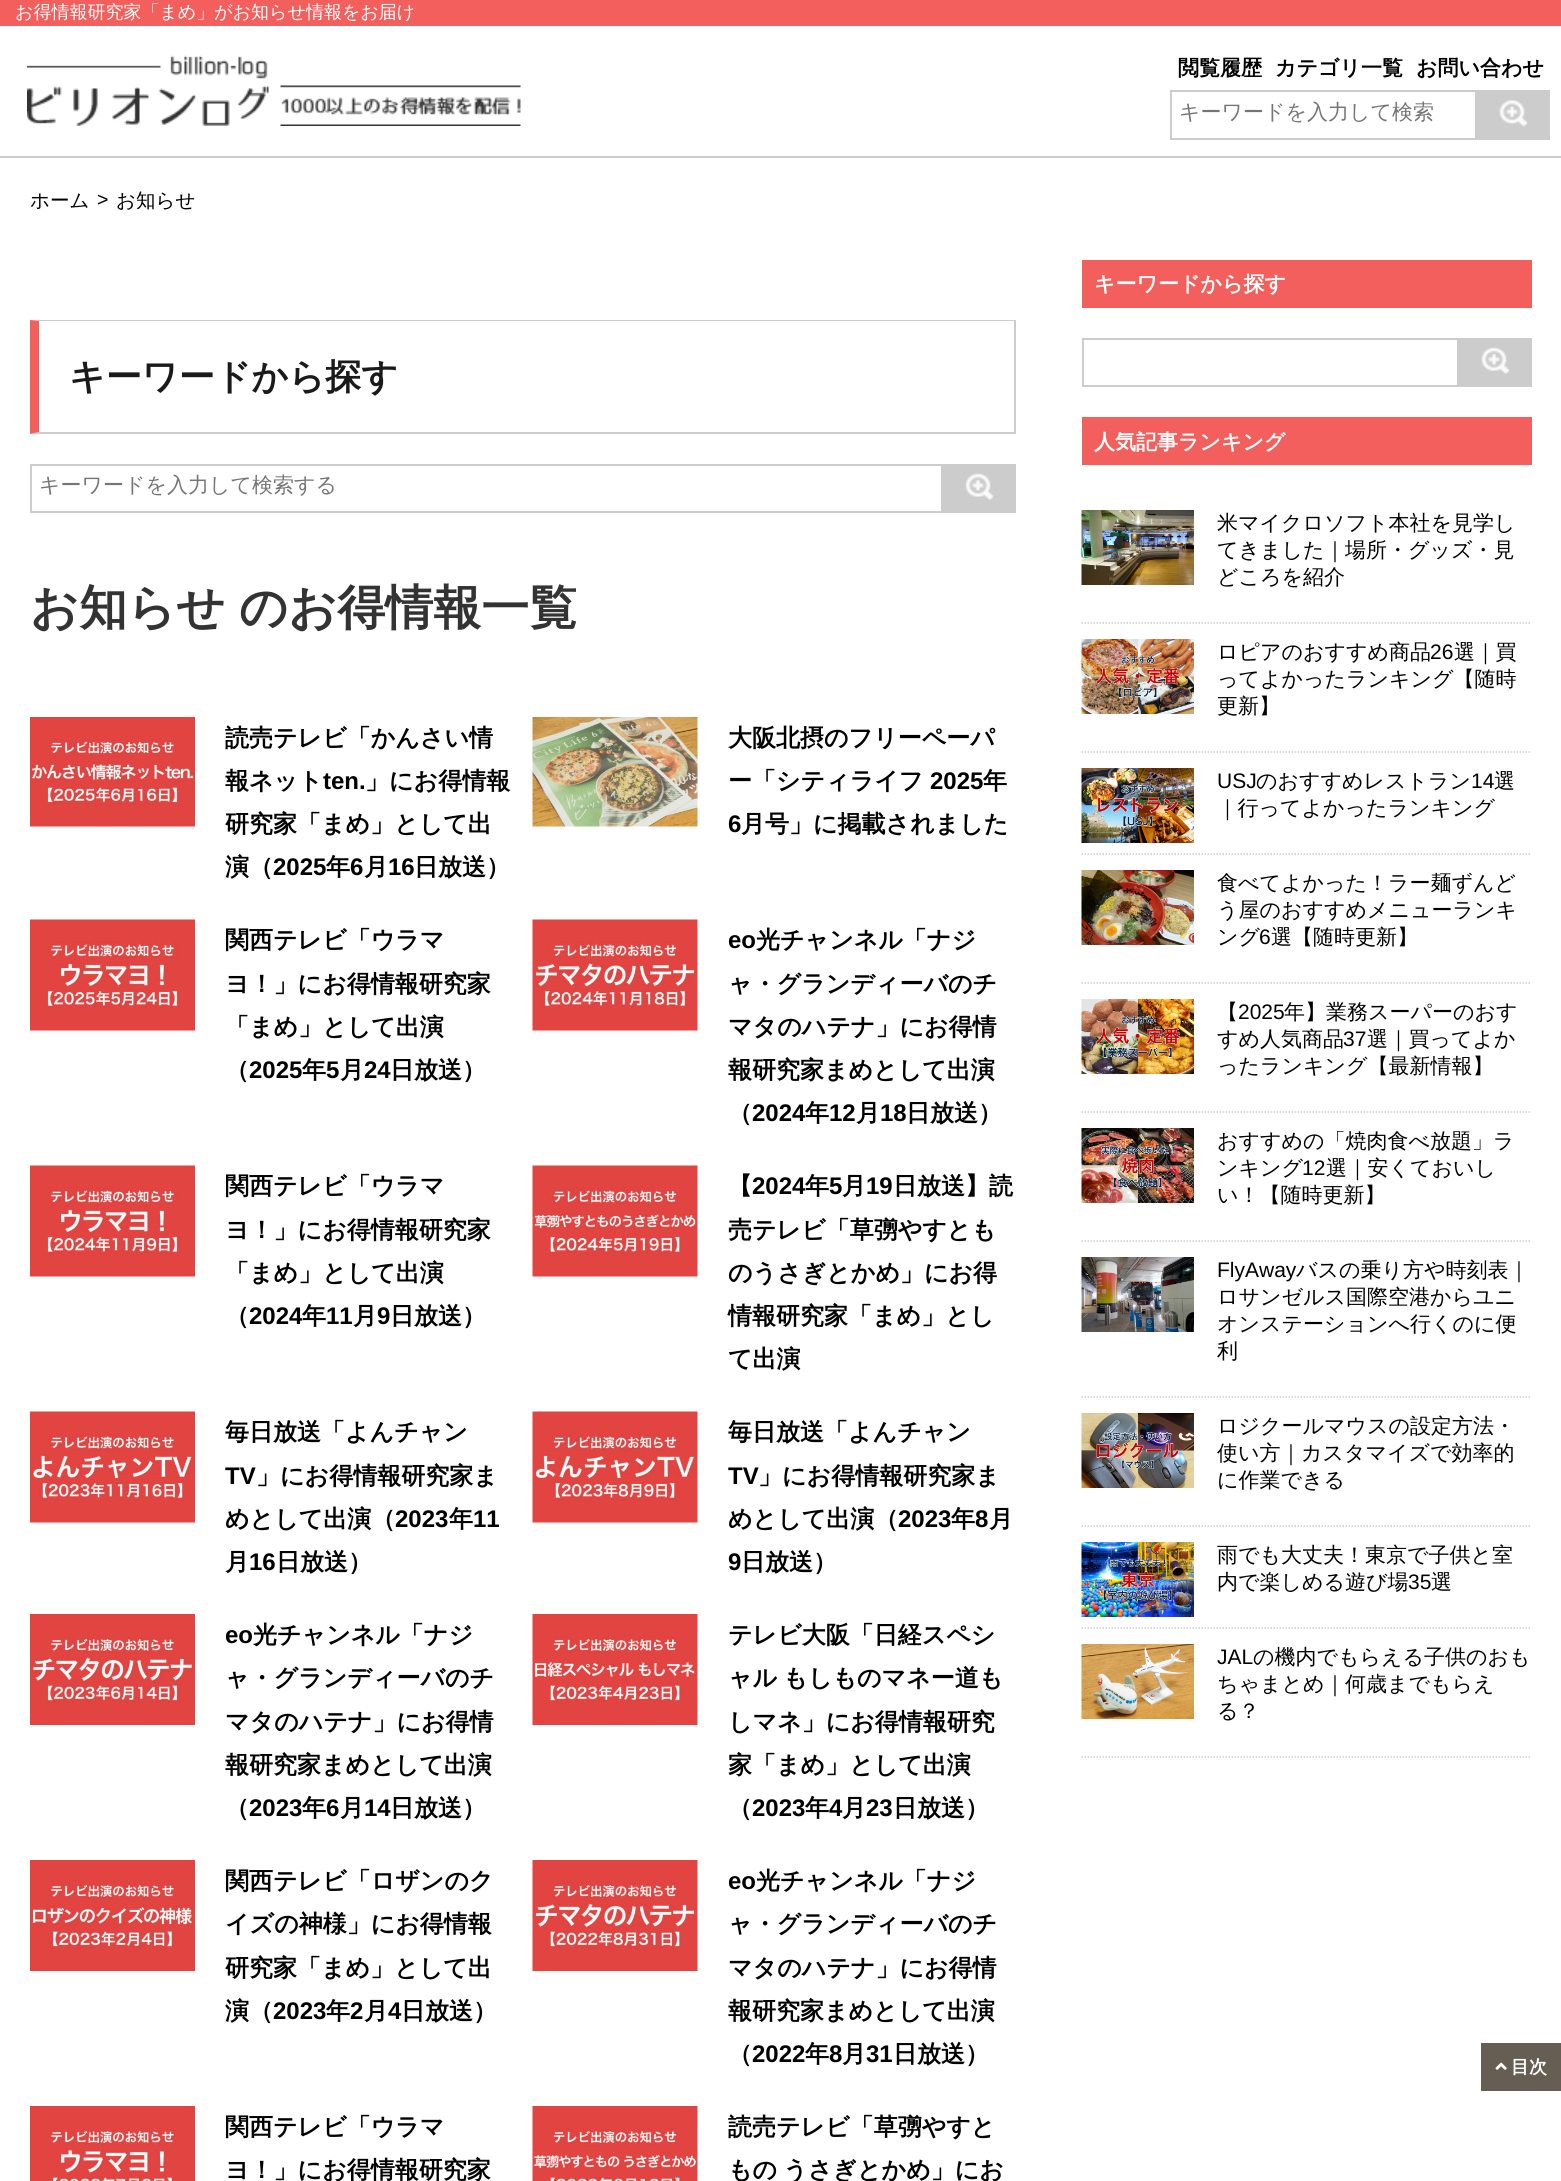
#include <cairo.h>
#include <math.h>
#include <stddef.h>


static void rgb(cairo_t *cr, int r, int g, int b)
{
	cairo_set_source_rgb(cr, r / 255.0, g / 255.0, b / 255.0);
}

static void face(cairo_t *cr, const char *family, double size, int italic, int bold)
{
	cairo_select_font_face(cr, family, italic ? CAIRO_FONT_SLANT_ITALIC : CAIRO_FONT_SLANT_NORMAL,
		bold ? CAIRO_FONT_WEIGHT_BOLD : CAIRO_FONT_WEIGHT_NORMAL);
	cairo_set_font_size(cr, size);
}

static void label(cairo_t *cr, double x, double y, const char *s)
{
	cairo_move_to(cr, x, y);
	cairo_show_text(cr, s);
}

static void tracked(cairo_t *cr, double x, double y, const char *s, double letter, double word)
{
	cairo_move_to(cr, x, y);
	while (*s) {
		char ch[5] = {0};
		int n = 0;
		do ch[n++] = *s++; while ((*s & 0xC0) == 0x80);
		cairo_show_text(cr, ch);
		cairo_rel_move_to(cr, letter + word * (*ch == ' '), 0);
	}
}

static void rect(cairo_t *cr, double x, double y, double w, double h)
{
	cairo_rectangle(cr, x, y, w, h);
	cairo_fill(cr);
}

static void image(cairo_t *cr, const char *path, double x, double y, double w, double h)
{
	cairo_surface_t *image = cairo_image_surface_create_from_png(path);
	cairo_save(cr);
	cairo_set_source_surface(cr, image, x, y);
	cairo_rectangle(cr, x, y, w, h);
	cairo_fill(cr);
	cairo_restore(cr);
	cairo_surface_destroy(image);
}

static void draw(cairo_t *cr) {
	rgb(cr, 255, 255, 255);
	cairo_paint(cr);
	rgb(cr, 242, 95, 92);
	rect(cr, 0, 0, 1561, 26);
	face(cr, "WenQuanYi Zen Hei Medium", 18, 0, 0);
	rgb(cr, 255, 255, 255);
	label(cr, 15, 18, "お得情報研究家「まめ」がお知らせ情報をお届け");
	image(cr, "image0.png", 27, 55, 494, 71);
	face(cr, "WenQuanYi Zen Hei", 21, 0, 1);
	rgb(cr, 0, 0, 0);
	label(cr, 1178, 75, "閲覧履歴");
	label(cr, 1275, 75, "カテゴリ一覧");
	label(cr, 1416, 75, "お問い合わせ");
	cairo_rectangle(cr, 1171, 91, 378, 48);
	rgb(cr, 204, 204, 204);
	cairo_stroke(cr);
	face(cr, "WenQuanYi Zen Hei Medium", 21, 0, 0);
	rgb(cr, 117, 117, 117);
	label(cr, 1179, 119, "キーワードを入力して検索");
	rgb(cr, 204, 204, 204);
	rect(cr, 1475, 92, 73, 46);
	image(cr, "image1.png", 1499, 100, 29, 27);
	rect(cr, 0, 156, 1561, 2);
	face(cr, "WenQuanYi Zen Hei Medium", 19.5, 0, 0);
	rgb(cr, 0, 0, 0);
	label(cr, 30, 207, "ホーム");
	face(cr, "Liberation Sans", 19.5, 0, 0);
	label(cr, 97, 206, ">");
	face(cr, "WenQuanYi Zen Hei Medium", 19.5, 0, 0);
	label(cr, 116, 207, "お知らせ");
	rgb(cr, 204, 204, 204);
	cairo_new_path(cr);
	cairo_move_to(cr, 30, 320);
	cairo_line_to(cr, 1016, 320);
	cairo_line_to(cr, 1014, 321);
	cairo_line_to(cr, 39, 321);
	cairo_close_path(cr);
	cairo_fill(cr);
	rect(cr, 1014, 320, 2, 114);
	cairo_new_path(cr);
	cairo_move_to(cr, 1016, 434);
	cairo_line_to(cr, 30, 434);
	cairo_line_to(cr, 39, 432);
	cairo_line_to(cr, 1014, 432);
	cairo_close_path(cr);
	cairo_fill(cr);
	rgb(cr, 242, 95, 92);
	cairo_new_path(cr);
	cairo_move_to(cr, 30, 434);
	cairo_line_to(cr, 30, 320);
	cairo_line_to(cr, 39, 321);
	cairo_line_to(cr, 39, 432);
	cairo_close_path(cr);
	cairo_fill(cr);
	face(cr, "WenQuanYi Zen Hei", 36, 0, 1);
	rgb(cr, 26, 26, 26);
	label(cr, 69, 389, "キーワードから探す");
	cairo_rectangle(cr, 31, 465, 984, 47);
	rgb(cr, 204, 204, 204);
	cairo_stroke(cr);
	face(cr, "WenQuanYi Zen Hei Medium", 21, 0, 0);
	rgb(cr, 117, 117, 117);
	label(cr, 39, 492, "キーワードを入力して検索する");
	rgb(cr, 204, 204, 204);
	rect(cr, 941, 466, 73, 45);
	image(cr, "image2.png", 965, 473, 29, 27);
	face(cr, "WenQuanYi Zen Hei", 48, 0, 1);
	rgb(cr, 51, 51, 51);
	label(cr, 30, 624, "お知らせ");
	label(cr, 239, 624, "のお得情報一覧");
	image(cr, "image3.png", 30, 717, 165, 110);
	face(cr, "WenQuanYi Zen Hei", 24, 0, 1);
	rgb(cr, 0, 0, 0);
	label(cr, 225, 746, "読売テレビ「かんさい情");
	label(cr, 225, 789, "報ネット");
	face(cr, "Liberation Sans", 24, 0, 1);
	label(cr, 323, 789, "ten.");
	face(cr, "WenQuanYi Zen Hei", 24, 0, 1);
	label(cr, 365, 789, "」にお得情報");
	label(cr, 225, 832, "研究家「まめ」として出");
	label(cr, 225, 875, "演（");
	face(cr, "Liberation Sans", 24, 0, 1);
	label(cr, 273, 875, "2025");
	face(cr, "WenQuanYi Zen Hei", 24, 0, 1);
	label(cr, 326, 875, "年");
	face(cr, "Liberation Sans", 24, 0, 1);
	label(cr, 350, 875, "6");
	face(cr, "WenQuanYi Zen Hei", 24, 0, 1);
	label(cr, 364, 875, "月");
	face(cr, "Liberation Sans", 24, 0, 1);
	label(cr, 388, 875, "16");
	face(cr, "WenQuanYi Zen Hei", 24, 0, 1);
	label(cr, 414, 875, "日放送）");
	image(cr, "image4.png", 532, 717, 166, 110);
	label(cr, 728, 746, "大阪北摂のフリーペーパ");
	label(cr, 728, 789, "ー「シティライフ");
	face(cr, "Liberation Sans", 24, 0, 1);
	label(cr, 930, 789, "2025");
	face(cr, "WenQuanYi Zen Hei", 24, 0, 1);
	label(cr, 983, 789, "年");
	face(cr, "Liberation Sans", 24, 0, 1);
	label(cr, 728, 832, "6");
	face(cr, "WenQuanYi Zen Hei", 24, 0, 1);
	label(cr, 741, 832, "月号」に掲載されました");
	image(cr, "image5.png", 30, 919, 165, 112);
	label(cr, 225, 948, "関西テレビ「ウラマ");
	label(cr, 225, 992, "ヨ！」にお得情報研究家");
	label(cr, 225, 1035, "「まめ」として出演");
	label(cr, 225, 1078, "（");
	face(cr, "Liberation Sans", 24, 0, 1);
	label(cr, 249, 1078, "2025");
	face(cr, "WenQuanYi Zen Hei", 24, 0, 1);
	label(cr, 302, 1078, "年");
	face(cr, "Liberation Sans", 24, 0, 1);
	label(cr, 326, 1078, "5");
	face(cr, "WenQuanYi Zen Hei", 24, 0, 1);
	label(cr, 340, 1078, "月");
	face(cr, "Liberation Sans", 24, 0, 1);
	label(cr, 364, 1078, "24");
	face(cr, "WenQuanYi Zen Hei", 24, 0, 1);
	label(cr, 390, 1078, "日放送）");
	image(cr, "image6.png", 532, 919, 166, 112);
	face(cr, "Liberation Sans", 24, 0, 1);
	label(cr, 728, 948, "eo");
	face(cr, "WenQuanYi Zen Hei", 24, 0, 1);
	label(cr, 756, 948, "光チャンネル「ナジ");
	label(cr, 728, 992, "ャ・グランディーバのチ");
	label(cr, 728, 1035, "マタのハテナ」にお得情");
	label(cr, 728, 1078, "報研究家まめとして出演");
	label(cr, 728, 1121, "（");
	face(cr, "Liberation Sans", 24, 0, 1);
	label(cr, 752, 1121, "2024");
	face(cr, "WenQuanYi Zen Hei", 24, 0, 1);
	label(cr, 805, 1121, "年");
	face(cr, "Liberation Sans", 24, 0, 1);
	label(cr, 829, 1121, "12");
	face(cr, "WenQuanYi Zen Hei", 24, 0, 1);
	label(cr, 856, 1121, "月");
	face(cr, "Liberation Sans", 24, 0, 1);
	label(cr, 880, 1121, "18");
	face(cr, "WenQuanYi Zen Hei", 24, 0, 1);
	label(cr, 906, 1121, "日放送）");
	image(cr, "image7.png", 30, 1165, 165, 112);
	label(cr, 225, 1194, "関西テレビ「ウラマ");
	label(cr, 225, 1238, "ヨ！」にお得情報研究家");
	label(cr, 225, 1281, "「まめ」として出演");
	label(cr, 225, 1324, "（");
	face(cr, "Liberation Sans", 24, 0, 1);
	label(cr, 249, 1324, "2024");
	face(cr, "WenQuanYi Zen Hei", 24, 0, 1);
	label(cr, 302, 1324, "年");
	face(cr, "Liberation Sans", 24, 0, 1);
	label(cr, 326, 1324, "11");
	face(cr, "WenQuanYi Zen Hei", 24, 0, 1);
	label(cr, 353, 1324, "月");
	face(cr, "Liberation Sans", 24, 0, 1);
	label(cr, 377, 1324, "9");
	face(cr, "WenQuanYi Zen Hei", 24, 0, 1);
	label(cr, 390, 1324, "日放送）");
	image(cr, "image8.png", 532, 1165, 166, 112);
	label(cr, 728, 1194, "【");
	face(cr, "Liberation Sans", 24, 0, 1);
	label(cr, 752, 1194, "2024");
	face(cr, "WenQuanYi Zen Hei", 24, 0, 1);
	label(cr, 805, 1194, "年");
	face(cr, "Liberation Sans", 24, 0, 1);
	label(cr, 829, 1194, "5");
	face(cr, "WenQuanYi Zen Hei", 24, 0, 1);
	label(cr, 842, 1194, "月");
	face(cr, "Liberation Sans", 24, 0, 1);
	label(cr, 866, 1194, "19");
	face(cr, "WenQuanYi Zen Hei", 24, 0, 1);
	label(cr, 893, 1194, "日放送】読");
	label(cr, 728, 1238, "売テレビ「草彅やすとも");
	label(cr, 728, 1281, "のうさぎとかめ」にお得");
	label(cr, 728, 1324, "情報研究家「まめ」とし");
	label(cr, 728, 1367, "て出演");
	image(cr, "image9.png", 30, 1411, 165, 112);
	label(cr, 225, 1440, "毎日放送「よんチャン");
	face(cr, "Liberation Sans", 24, 0, 1);
	label(cr, 225, 1484, "TV");
	face(cr, "WenQuanYi Zen Hei", 24, 0, 1);
	label(cr, 256, 1484, "」にお得情報研究家ま");
	label(cr, 225, 1527, "めとして出演（");
	face(cr, "Liberation Sans", 24, 0, 1);
	label(cr, 395, 1527, "2023");
	face(cr, "WenQuanYi Zen Hei", 24, 0, 1);
	label(cr, 449, 1527, "年");
	face(cr, "Liberation Sans", 24, 0, 1);
	label(cr, 473, 1527, "11");
	face(cr, "WenQuanYi Zen Hei", 24, 0, 1);
	label(cr, 225, 1570, "月");
	face(cr, "Liberation Sans", 24, 0, 1);
	label(cr, 249, 1570, "16");
	face(cr, "WenQuanYi Zen Hei", 24, 0, 1);
	label(cr, 276, 1570, "日放送）");
	image(cr, "image10.png", 532, 1411, 166, 112);
	label(cr, 728, 1440, "毎日放送「よんチャン");
	face(cr, "Liberation Sans", 24, 0, 1);
	label(cr, 728, 1484, "TV");
	face(cr, "WenQuanYi Zen Hei", 24, 0, 1);
	label(cr, 758, 1484, "」にお得情報研究家ま");
	label(cr, 728, 1527, "めとして出演（");
	face(cr, "Liberation Sans", 24, 0, 1);
	label(cr, 898, 1527, "2023");
	face(cr, "WenQuanYi Zen Hei", 24, 0, 1);
	label(cr, 951, 1527, "年");
	face(cr, "Liberation Sans", 24, 0, 1);
	label(cr, 975, 1527, "8");
	face(cr, "WenQuanYi Zen Hei", 24, 0, 1);
	label(cr, 989, 1527, "月");
	face(cr, "Liberation Sans", 24, 0, 1);
	label(cr, 728, 1570, "9");
	face(cr, "WenQuanYi Zen Hei", 24, 0, 1);
	label(cr, 741, 1570, "日放送）");
	image(cr, "image11.png", 30, 1614, 165, 111);
	face(cr, "Liberation Sans", 24, 0, 1);
	label(cr, 225, 1643, "eo");
	face(cr, "WenQuanYi Zen Hei", 24, 0, 1);
	label(cr, 253, 1643, "光チャンネル「ナジ");
	label(cr, 225, 1686, "ャ・グランディーバのチ");
	label(cr, 225, 1730, "マタのハテナ」にお得情");
	label(cr, 225, 1773, "報研究家まめとして出演");
	label(cr, 225, 1816, "（");
	face(cr, "Liberation Sans", 24, 0, 1);
	label(cr, 249, 1816, "2023");
	face(cr, "WenQuanYi Zen Hei", 24, 0, 1);
	label(cr, 302, 1816, "年");
	face(cr, "Liberation Sans", 24, 0, 1);
	label(cr, 326, 1816, "6");
	face(cr, "WenQuanYi Zen Hei", 24, 0, 1);
	label(cr, 340, 1816, "月");
	face(cr, "Liberation Sans", 24, 0, 1);
	label(cr, 364, 1816, "14");
	face(cr, "WenQuanYi Zen Hei", 24, 0, 1);
	label(cr, 390, 1816, "日放送）");
	image(cr, "image12.png", 532, 1614, 166, 111);
	label(cr, 728, 1643, "テレビ大阪「日経スペシ");
	tracked(cr, 728, 1686, "ャル もしものマネー道も", 0, -1);
	label(cr, 728, 1730, "しマネ」にお得情報研究");
	label(cr, 728, 1773, "家「まめ」として出演");
	label(cr, 728, 1816, "（");
	face(cr, "Liberation Sans", 24, 0, 1);
	label(cr, 752, 1816, "2023");
	face(cr, "WenQuanYi Zen Hei", 24, 0, 1);
	label(cr, 805, 1816, "年");
	face(cr, "Liberation Sans", 24, 0, 1);
	label(cr, 829, 1816, "4");
	face(cr, "WenQuanYi Zen Hei", 24, 0, 1);
	label(cr, 842, 1816, "月");
	face(cr, "Liberation Sans", 24, 0, 1);
	label(cr, 866, 1816, "23");
	face(cr, "WenQuanYi Zen Hei", 24, 0, 1);
	label(cr, 893, 1816, "日放送）");
	image(cr, "image13.png", 30, 1860, 165, 111);
	label(cr, 225, 1889, "関西テレビ「ロザンのク");
	label(cr, 225, 1932, "イズの神様」にお得情報");
	label(cr, 225, 1976, "研究家「まめ」として出");
	label(cr, 225, 2019, "演（");
	face(cr, "Liberation Sans", 24, 0, 1);
	label(cr, 273, 2019, "2023");
	face(cr, "WenQuanYi Zen Hei", 24, 0, 1);
	label(cr, 326, 2019, "年");
	face(cr, "Liberation Sans", 24, 0, 1);
	label(cr, 350, 2019, "2");
	face(cr, "WenQuanYi Zen Hei", 24, 0, 1);
	label(cr, 364, 2019, "月");
	face(cr, "Liberation Sans", 24, 0, 1);
	label(cr, 388, 2019, "4");
	face(cr, "WenQuanYi Zen Hei", 24, 0, 1);
	label(cr, 401, 2019, "日放送）");
	image(cr, "image14.png", 532, 1860, 166, 111);
	face(cr, "Liberation Sans", 24, 0, 1);
	label(cr, 728, 1889, "eo");
	face(cr, "WenQuanYi Zen Hei", 24, 0, 1);
	label(cr, 756, 1889, "光チャンネル「ナジ");
	label(cr, 728, 1932, "ャ・グランディーバのチ");
	label(cr, 728, 1976, "マタのハテナ」にお得情");
	label(cr, 728, 2019, "報研究家まめとして出演");
	label(cr, 728, 2062, "（");
	face(cr, "Liberation Sans", 24, 0, 1);
	label(cr, 752, 2062, "2022");
	face(cr, "WenQuanYi Zen Hei", 24, 0, 1);
	label(cr, 805, 2062, "年");
	face(cr, "Liberation Sans", 24, 0, 1);
	label(cr, 829, 2062, "8");
	face(cr, "WenQuanYi Zen Hei", 24, 0, 1);
	label(cr, 842, 2062, "月");
	face(cr, "Liberation Sans", 24, 0, 1);
	label(cr, 866, 2062, "31");
	face(cr, "WenQuanYi Zen Hei", 24, 0, 1);
	label(cr, 893, 2062, "日放送）");
	image(cr, "image15.png", 30, 2106, 165, 75);
	label(cr, 225, 2135, "関西テレビ「ウラマ");
	label(cr, 225, 2178, "ヨ！」にお得情報研究家");
	image(cr, "image16.png", 532, 2106, 166, 75);
	label(cr, 728, 2135, "読売テレビ「草彅やすと");
	tracked(cr, 728, 2178, "もの うさぎとかめ」にお", 0, -1);
	rgb(cr, 242, 95, 92);
	rect(cr, 1082, 260, 450, 48);
	face(cr, "WenQuanYi Zen Hei", 21, 0, 1);
	rgb(cr, 255, 255, 255);
	label(cr, 1094, 291, "キーワードから探す");
	cairo_rectangle(cr, 1083, 339, 448, 47);
	rgb(cr, 204, 204, 204);
	cairo_stroke(cr);
	rect(cr, 1457, 340, 73, 45);
	image(cr, "image17.png", 1481, 347, 29, 27);
	rgb(cr, 242, 95, 92);
	rect(cr, 1082, 417, 450, 48);
	rgb(cr, 255, 255, 255);
	label(cr, 1094, 449, "人気記事ランキング");
	cairo_new_path(cr);
	cairo_move_to(cr, 1081.5, 623);
	cairo_line_to(cr, 1531.5, 623);
	rgb(cr, 204, 204, 204);
	cairo_set_line_width(cr, 1.5);
	cairo_set_dash(cr, (double[]){1.5, 1.5}, 2, 0);
	cairo_stroke(cr);
	image(cr, "image18.png", 1081, 510, 113, 75);
	face(cr, "WenQuanYi Zen Hei Medium", 21, 0, 0);
	rgb(cr, 0, 0, 0);
	label(cr, 1217, 530, "米マイクロソフト本社を見学し");
	label(cr, 1217, 557, "てきました｜場所・グッズ・見");
	label(cr, 1217, 584, "どころを紹介");
	cairo_new_path(cr);
	cairo_move_to(cr, 1081.5, 752);
	cairo_line_to(cr, 1531.5, 752);
	rgb(cr, 204, 204, 204);
	cairo_stroke(cr);
	image(cr, "image19.png", 1081, 639, 113, 75);
	rgb(cr, 0, 0, 0);
	label(cr, 1217, 659, "ロピアのおすすめ商品");
	face(cr, "Liberation Sans", 21, 0, 0);
	label(cr, 1430, 659, "26");
	face(cr, "WenQuanYi Zen Hei Medium", 21, 0, 0);
	label(cr, 1454, 659, "選｜買");
	label(cr, 1217, 686, "ってよかったランキング【随時");
	label(cr, 1217, 713, "更新】");
	cairo_new_path(cr);
	cairo_move_to(cr, 1081.5, 854);
	cairo_line_to(cr, 1531.5, 854);
	rgb(cr, 204, 204, 204);
	cairo_stroke(cr);
	image(cr, "image20.png", 1081, 768, 113, 75);
	face(cr, "Liberation Sans", 21, 0, 0);
	rgb(cr, 0, 0, 0);
	label(cr, 1217, 788, "USJ");
	face(cr, "WenQuanYi Zen Hei Medium", 21, 0, 0);
	label(cr, 1256, 788, "のおすすめレストラン");
	face(cr, "Liberation Sans", 21, 0, 0);
	label(cr, 1471, 788, "14");
	face(cr, "WenQuanYi Zen Hei Medium", 21, 0, 0);
	label(cr, 1494, 788, "選");
	label(cr, 1217, 815, "｜行ってよかったランキング");
	cairo_new_path(cr);
	cairo_move_to(cr, 1081.5, 983);
	cairo_line_to(cr, 1531.5, 983);
	rgb(cr, 204, 204, 204);
	cairo_stroke(cr);
	image(cr, "image21.png", 1081, 870, 113, 75);
	rgb(cr, 0, 0, 0);
	label(cr, 1217, 890, "食べてよかった！ラー麺ずんど");
	label(cr, 1217, 917, "う屋のおすすめメニューランキ");
	label(cr, 1217, 944, "ング");
	face(cr, "Liberation Sans", 21, 0, 0);
	label(cr, 1259, 944, "6");
	face(cr, "WenQuanYi Zen Hei Medium", 21, 0, 0);
	label(cr, 1271, 944, "選【随時更新】");
	cairo_new_path(cr);
	cairo_move_to(cr, 1081.5, 1112);
	cairo_line_to(cr, 1531.5, 1112);
	rgb(cr, 204, 204, 204);
	cairo_stroke(cr);
	image(cr, "image22.png", 1081, 999, 113, 75);
	rgb(cr, 0, 0, 0);
	label(cr, 1217, 1019, "【");
	face(cr, "Liberation Sans", 21, 0, 0);
	label(cr, 1238, 1019, "2025");
	face(cr, "WenQuanYi Zen Hei Medium", 21, 0, 0);
	label(cr, 1284, 1019, "年】業務スーパーのおす");
	label(cr, 1217, 1046, "すめ人気商品");
	face(cr, "Liberation Sans", 21, 0, 0);
	label(cr, 1343, 1046, "37");
	face(cr, "WenQuanYi Zen Hei Medium", 21, 0, 0);
	label(cr, 1367, 1046, "選｜買ってよか");
	label(cr, 1217, 1073, "ったランキング【最新情報】");
	cairo_new_path(cr);
	cairo_move_to(cr, 1081.5, 1241);
	cairo_line_to(cr, 1531.5, 1241);
	rgb(cr, 204, 204, 204);
	cairo_stroke(cr);
	image(cr, "image23.png", 1081, 1128, 113, 75);
	rgb(cr, 0, 0, 0);
	label(cr, 1217, 1148, "おすすめの「焼肉食べ放題」ラ");
	label(cr, 1217, 1175, "ンキング");
	face(cr, "Liberation Sans", 21, 0, 0);
	label(cr, 1302, 1175, "12");
	face(cr, "WenQuanYi Zen Hei Medium", 21, 0, 0);
	label(cr, 1326, 1175, "選｜安くておいし");
	label(cr, 1217, 1202, "い！【随時更新】");
	cairo_new_path(cr);
	cairo_move_to(cr, 1081.5, 1397);
	cairo_line_to(cr, 1531.5, 1397);
	rgb(cr, 204, 204, 204);
	cairo_stroke(cr);
	image(cr, "image24.png", 1081, 1257, 113, 75);
	face(cr, "Liberation Sans", 21, 0, 0);
	rgb(cr, 0, 0, 0);
	label(cr, 1217, 1277, "FlyAway");
	face(cr, "WenQuanYi Zen Hei Medium", 21, 0, 0);
	label(cr, 1296, 1277, "バスの乗り方や時刻表｜");
	label(cr, 1217, 1304, "ロサンゼルス国際空港からユニ");
	label(cr, 1217, 1331, "オンステーションへ行くのに便");
	label(cr, 1217, 1358, "利");
	cairo_new_path(cr);
	cairo_move_to(cr, 1081.5, 1526);
	cairo_line_to(cr, 1531.5, 1526);
	rgb(cr, 204, 204, 204);
	cairo_stroke(cr);
	image(cr, "image25.png", 1081, 1413, 113, 75);
	rgb(cr, 0, 0, 0);
	label(cr, 1217, 1433, "ロジクールマウスの設定方法・");
	label(cr, 1217, 1460, "使い方｜カスタマイズで効率的");
	label(cr, 1217, 1487, "に作業できる");
	cairo_new_path(cr);
	cairo_move_to(cr, 1081.5, 1628);
	cairo_line_to(cr, 1531.5, 1628);
	rgb(cr, 204, 204, 204);
	cairo_stroke(cr);
	image(cr, "image26.png", 1081, 1542, 113, 75);
	rgb(cr, 0, 0, 0);
	label(cr, 1217, 1562, "雨でも大丈夫！東京で子供と室");
	label(cr, 1217, 1589, "内で楽しめる遊び場");
	face(cr, "Liberation Sans", 21, 0, 0);
	label(cr, 1408, 1589, "35");
	face(cr, "WenQuanYi Zen Hei Medium", 21, 0, 0);
	label(cr, 1431, 1589, "選");
	cairo_new_path(cr);
	cairo_move_to(cr, 1081.5, 1757);
	cairo_line_to(cr, 1531.5, 1757);
	rgb(cr, 204, 204, 204);
	cairo_stroke(cr);
	image(cr, "image27.png", 1081, 1644, 113, 75);
	face(cr, "Liberation Sans", 21, 0, 0);
	rgb(cr, 0, 0, 0);
	label(cr, 1217, 1664, "JAL");
	face(cr, "WenQuanYi Zen Hei Medium", 21, 0, 0);
	label(cr, 1253, 1664, "の機内でもらえる子供のおも");
	label(cr, 1217, 1691, "ちゃまとめ｜何歳までもらえ");
	label(cr, 1217, 1718, "る？");
	rgb(cr, 102, 94, 83);
	rect(cr, 1481, 2043, 80, 48);
	image(cr, "image28.png", 1495, 2062, 12, 8);
	face(cr, "WenQuanYi Zen Hei", 18, 0, 1);
	rgb(cr, 255, 255, 255);
	label(cr, 1511, 2073, "目次");
}

int main(void) {
	cairo_surface_t *surface = cairo_image_surface_create(CAIRO_FORMAT_RGB24, 1561, 2181);
	cairo_t *cr = cairo_create(surface);
	cairo_font_options_t *options = cairo_font_options_create();
	cairo_font_options_set_hint_metrics(options, CAIRO_HINT_METRICS_OFF);
	cairo_font_options_set_hint_style(options, CAIRO_HINT_STYLE_NONE);
	cairo_set_font_options(cr, options);
	cairo_set_miter_limit(cr, 4);
	draw(cr);
	cairo_surface_write_to_png(surface, "render.png");
	cairo_font_options_destroy(options);
	cairo_destroy(cr);
	cairo_surface_destroy(surface);
	return 0;
}
